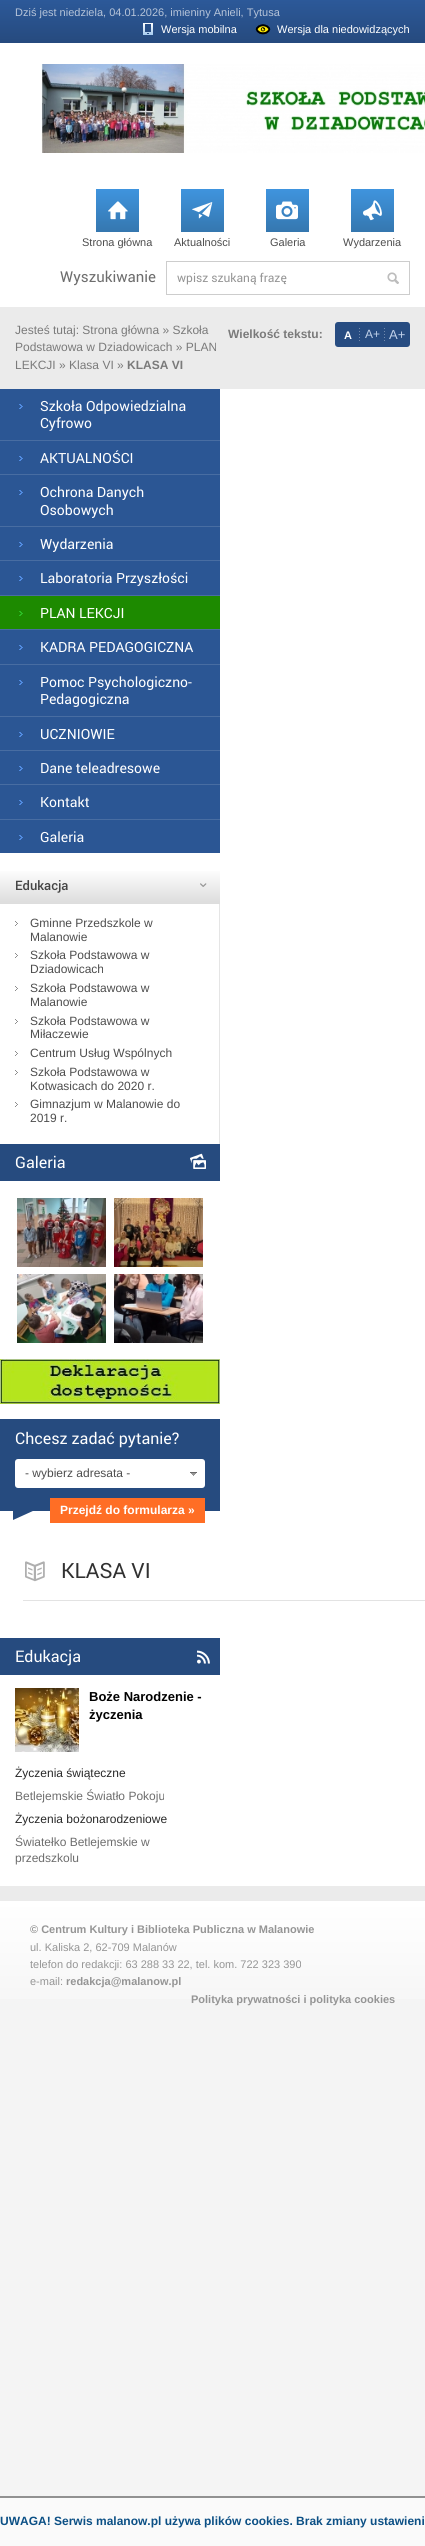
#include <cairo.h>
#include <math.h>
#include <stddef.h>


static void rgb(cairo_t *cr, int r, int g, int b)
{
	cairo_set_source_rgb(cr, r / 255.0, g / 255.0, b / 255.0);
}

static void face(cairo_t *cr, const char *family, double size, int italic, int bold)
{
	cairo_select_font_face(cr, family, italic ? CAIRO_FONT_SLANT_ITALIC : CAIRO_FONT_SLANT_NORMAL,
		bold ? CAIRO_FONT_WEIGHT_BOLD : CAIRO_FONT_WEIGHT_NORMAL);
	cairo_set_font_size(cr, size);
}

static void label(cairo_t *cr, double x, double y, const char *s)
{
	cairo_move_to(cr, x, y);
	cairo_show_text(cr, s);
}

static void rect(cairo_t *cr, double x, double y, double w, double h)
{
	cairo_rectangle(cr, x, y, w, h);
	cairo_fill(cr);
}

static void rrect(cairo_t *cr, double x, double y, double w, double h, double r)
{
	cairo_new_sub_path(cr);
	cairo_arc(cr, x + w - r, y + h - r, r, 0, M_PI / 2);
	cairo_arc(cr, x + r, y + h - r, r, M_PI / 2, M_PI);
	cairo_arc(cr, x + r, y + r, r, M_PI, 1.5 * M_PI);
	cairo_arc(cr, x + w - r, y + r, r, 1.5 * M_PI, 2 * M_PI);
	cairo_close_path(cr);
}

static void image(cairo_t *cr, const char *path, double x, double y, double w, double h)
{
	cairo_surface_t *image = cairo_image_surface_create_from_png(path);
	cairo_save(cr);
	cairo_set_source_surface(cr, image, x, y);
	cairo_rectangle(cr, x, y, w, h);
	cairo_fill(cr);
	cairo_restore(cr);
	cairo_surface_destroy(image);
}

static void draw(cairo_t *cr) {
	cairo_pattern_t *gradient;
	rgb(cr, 244, 244, 244);
	cairo_paint(cr);
	gradient = cairo_pattern_create_linear(213, 43, 213, 0);
	cairo_pattern_add_color_stop_rgba(gradient, 0, 0.149, 0.29, 0.494, 1);
	cairo_pattern_add_color_stop_rgba(gradient, 1, 0.173, 0.349, 0.6, 1);
	cairo_set_source(cr, gradient);
	cairo_pattern_destroy(gradient);
	rect(cr, 0, 0, 425, 43);
	face(cr, "Liberation Sans", 11, 0, 0);
	rgb(cr, 182, 196, 217);
	label(cr, 15, 16, "Dziś jest niedziela, 04.01.2026, imieniny Anieli, Tytusa");
	image(cr, "image0.png", 143, 23, 10, 12);
	rgb(cr, 255, 255, 255);
	label(cr, 161, 33, "Wersja mobilna");
	image(cr, "image1.png", 255, 24, 16, 11);
	label(cr, 277, 33, "Wersja dla niedowidzących");
	rect(cr, 0, 43, 425, 264);
	image(cr, "image2.png", 41, 64, 384, 89);
	gradient = cairo_pattern_create_linear(118, 232, 118, 189);
	cairo_pattern_add_color_stop_rgba(gradient, 0, 0.208, 0.467, 0.686, 1);
	cairo_pattern_add_color_stop_rgba(gradient, 1, 0.247, 0.58, 0.871, 1);
	cairo_set_source(cr, gradient);
	cairo_pattern_destroy(gradient);
	rect(cr, 96, 189, 43, 43);
	image(cr, "image3.png", 108, 201, 20, 19);
	rgb(cr, 77, 77, 77);
	label(cr, 82, 246, "Strona główna");
	gradient = cairo_pattern_create_linear(203, 232, 203, 189);
	cairo_pattern_add_color_stop_rgba(gradient, 0, 0.208, 0.467, 0.686, 1);
	cairo_pattern_add_color_stop_rgba(gradient, 1, 0.247, 0.58, 0.871, 1);
	cairo_set_source(cr, gradient);
	cairo_pattern_destroy(gradient);
	rect(cr, 181, 189, 43, 43);
	image(cr, "image4.png", 192, 202, 21, 17);
	rgb(cr, 77, 77, 77);
	label(cr, 174, 246, "Aktualności");
	gradient = cairo_pattern_create_linear(288, 232, 288, 189);
	cairo_pattern_add_color_stop_rgba(gradient, 0, 0.208, 0.467, 0.686, 1);
	cairo_pattern_add_color_stop_rgba(gradient, 1, 0.247, 0.58, 0.871, 1);
	cairo_set_source(cr, gradient);
	cairo_pattern_destroy(gradient);
	rect(cr, 266, 189, 43, 43);
	image(cr, "image5.png", 276, 201, 22, 19);
	rgb(cr, 77, 77, 77);
	label(cr, 270, 246, "Galeria");
	gradient = cairo_pattern_create_linear(373, 232, 373, 189);
	cairo_pattern_add_color_stop_rgba(gradient, 0, 0.208, 0.467, 0.686, 1);
	cairo_pattern_add_color_stop_rgba(gradient, 1, 0.247, 0.58, 0.871, 1);
	cairo_set_source(cr, gradient);
	cairo_pattern_destroy(gradient);
	rect(cr, 351, 189, 43, 43);
	image(cr, "image6.png", 363, 200, 19, 21);
	rgb(cr, 77, 77, 77);
	label(cr, 343, 246, "Wydarzenia");
	face(cr, "Roboto", 15, 0, 0);
	rgb(cr, 109, 109, 109);
	label(cr, 60, 282, "Wyszukiwanie");
	cairo_rectangle(cr, 166.5, 261.5, 243, 33);
	rgb(cr, 205, 205, 205);
	cairo_set_line_width(cr, 1);
	cairo_stroke(cr);
	face(cr, "Roboto", 12, 0, 0);
	rgb(cr, 149, 149, 149);
	label(cr, 177, 282, "wpisz szukaną frazę");
	image(cr, "image7.png", 387, 272, 12, 12);
	rgb(cr, 235, 235, 235);
	rect(cr, 0, 307, 425, 1594);
	face(cr, "Liberation Sans", 12, 0, 0);
	rgb(cr, 122, 122, 122);
	label(cr, 15, 334, "Jesteś tutaj: Strona główna » Szkoła");
	face(cr, "Liberation Sans", 12, 0, 1);
	label(cr, 228, 338, "Wielkość tekstu:");
	rgb(cr, 39, 76, 129);
	rrect(cr, 335, 322, 75, 25, 3);
	cairo_fill(cr);
	image(cr, "image8.png", 359, 328, 1, 13);
	face(cr, "Liberation Sans", 11, 0, 1);
	rgb(cr, 255, 255, 255);
	label(cr, 344, 339, "A");
	image(cr, "image8.png", 384, 328, 1, 13);
	face(cr, "Liberation Sans", 12, 0, 0);
	rgb(cr, 193, 209, 233);
	label(cr, 365, 338, "A+");
	face(cr, "Liberation Sans", 13, 0, 0);
	label(cr, 389, 339, "A+");
	face(cr, "Liberation Sans", 12, 0, 0);
	rgb(cr, 122, 122, 122);
	label(cr, 15, 351, "Podstawowa w Dziadowicach » PLAN");
	label(cr, 15, 369, "LEKCJI » Klasa VI »");
	face(cr, "Liberation Sans", 12, 0, 1);
	label(cr, 127, 369, "KLASA VI");
	rgb(cr, 255, 255, 255);
	rect(cr, 0, 389, 425, 1497);
	rgb(cr, 43, 86, 148);
	rect(cr, 0, 389, 220, 51);
	image(cr, "image9.png", 19, 404, 4, 5);
	face(cr, "Roboto", 14, 0, 0);
	rgb(cr, 255, 255, 255);
	label(cr, 40, 411, "Szkoła Odpowiedzialna");
	label(cr, 40, 428, "Cyfrowo");
	rgb(cr, 72, 109, 162);
	rect(cr, 0, 440, 220, 1);
	rgb(cr, 43, 86, 148);
	rect(cr, 0, 441, 220, 33);
	image(cr, "image9.png", 19, 456, 4, 5);
	rgb(cr, 255, 255, 255);
	label(cr, 40, 463, "AKTUALNOŚCI");
	rgb(cr, 72, 109, 162);
	rect(cr, 0, 474, 220, 1);
	rgb(cr, 43, 86, 148);
	rect(cr, 0, 475, 220, 51);
	image(cr, "image9.png", 19, 490, 4, 5);
	rgb(cr, 255, 255, 255);
	label(cr, 40, 497, "Ochrona Danych");
	label(cr, 40, 515, "Osobowych");
	rgb(cr, 72, 109, 162);
	rect(cr, 0, 526, 220, 1);
	rgb(cr, 43, 86, 148);
	rect(cr, 0, 527, 220, 33);
	image(cr, "image9.png", 19, 542, 4, 5);
	rgb(cr, 255, 255, 255);
	label(cr, 40, 549, "Wydarzenia");
	rgb(cr, 72, 109, 162);
	rect(cr, 0, 560, 220, 1);
	rgb(cr, 43, 86, 148);
	rect(cr, 0, 561, 220, 34);
	image(cr, "image9.png", 19, 576, 4, 5);
	rgb(cr, 255, 255, 255);
	label(cr, 40, 583, "Laboratoria Przyszłości");
	rgb(cr, 72, 109, 162);
	rect(cr, 0, 595, 220, 1);
	rgb(cr, 29, 138, 0);
	rect(cr, 0, 596, 220, 33);
	image(cr, "image10.png", 19, 611, 4, 5);
	rgb(cr, 255, 255, 255);
	label(cr, 40, 618, "PLAN LEKCJI");
	rgb(cr, 72, 109, 162);
	rect(cr, 0, 629, 220, 1);
	rgb(cr, 43, 86, 148);
	rect(cr, 0, 630, 220, 34);
	image(cr, "image9.png", 19, 645, 4, 5);
	rgb(cr, 255, 255, 255);
	label(cr, 40, 652, "KADRA PEDAGOGICZNA");
	rgb(cr, 72, 109, 162);
	rect(cr, 0, 664, 220, 1);
	rgb(cr, 43, 86, 148);
	rect(cr, 0, 665, 220, 51);
	image(cr, "image9.png", 19, 680, 4, 5);
	rgb(cr, 255, 255, 255);
	label(cr, 40, 687, "Pomoc Psychologiczno-");
	label(cr, 40, 704, "Pedagogiczna");
	rgb(cr, 72, 109, 162);
	rect(cr, 0, 716, 220, 1);
	rgb(cr, 43, 86, 148);
	rect(cr, 0, 717, 220, 33);
	image(cr, "image9.png", 19, 732, 4, 5);
	rgb(cr, 255, 255, 255);
	label(cr, 40, 739, "UCZNIOWIE");
	rgb(cr, 72, 109, 162);
	rect(cr, 0, 750, 220, 1);
	rgb(cr, 43, 86, 148);
	rect(cr, 0, 751, 220, 33);
	image(cr, "image9.png", 19, 766, 4, 5);
	rgb(cr, 255, 255, 255);
	label(cr, 40, 773, "Dane teleadresowe");
	rgb(cr, 72, 109, 162);
	rect(cr, 0, 784, 220, 1);
	rgb(cr, 43, 86, 148);
	rect(cr, 0, 785, 220, 34);
	image(cr, "image9.png", 19, 800, 4, 5);
	rgb(cr, 255, 255, 255);
	label(cr, 40, 807, "Kontakt");
	rgb(cr, 72, 109, 162);
	rect(cr, 0, 819, 220, 1);
	rgb(cr, 43, 86, 148);
	rect(cr, 0, 820, 220, 33);
	image(cr, "image9.png", 19, 835, 4, 5);
	rgb(cr, 255, 255, 255);
	label(cr, 40, 842, "Galeria");
	gradient = cairo_pattern_create_linear(110, 904, 110, 868);
	cairo_pattern_add_color_stop_rgba(gradient, 0, 0.863, 0.863, 0.863, 1);
	cairo_pattern_add_color_stop_rgba(gradient, 1, 1, 1, 1, 1);
	cairo_set_source(cr, gradient);
	cairo_pattern_destroy(gradient);
	rect(cr, 0, 871, 220, 33);
	face(cr, "Roboto Medium", 13, 0, 0);
	rgb(cr, 69, 69, 69);
	label(cr, 15, 890, "Edukacja");
	image(cr, "image11.png", 200, 883, 7, 4);
	rgb(cr, 229, 229, 229);
	rect(cr, 219, 904, 1, 240);
	image(cr, "image12.png", 15, 921, 3, 5);
	face(cr, "Liberation Sans", 12, 0, 0);
	rgb(cr, 77, 77, 77);
	label(cr, 30, 927, "Gminne Przedszkole w");
	label(cr, 30, 941, "Malanowie");
	image(cr, "image12.png", 15, 953, 3, 5);
	label(cr, 30, 959, "Szkoła Podstawowa w");
	label(cr, 30, 973, "Dziadowicach");
	image(cr, "image12.png", 15, 986, 3, 5);
	label(cr, 30, 992, "Szkoła Podstawowa w");
	label(cr, 30, 1006, "Malanowie");
	image(cr, "image12.png", 15, 1019, 3, 5);
	label(cr, 30, 1025, "Szkoła Podstawowa w");
	label(cr, 30, 1038, "Miłaczewie");
	image(cr, "image12.png", 15, 1051, 3, 5);
	label(cr, 30, 1057, "Centrum Usług Wspólnych");
	image(cr, "image12.png", 15, 1070, 3, 5);
	label(cr, 30, 1076, "Szkoła Podstawowa w");
	label(cr, 30, 1090, "Kotwasicach do 2020 r.");
	image(cr, "image12.png", 15, 1102, 3, 5);
	label(cr, 30, 1108, "Gimnazjum w Malanowie do");
	label(cr, 30, 1122, "2019 r.");
	rgb(cr, 38, 75, 127);
	rect(cr, 0, 1144, 220, 37);
	face(cr, "Roboto", 16, 0, 0);
	rgb(cr, 255, 255, 255);
	label(cr, 15, 1168, "Galeria");
	image(cr, "image13.png", 190, 1153, 16, 16);
	image(cr, "image14.png", 17, 1198, 89, 69);
	image(cr, "image15.png", 114, 1198, 89, 69);
	image(cr, "image16.png", 17, 1274, 89, 69);
	image(cr, "image17.png", 114, 1274, 89, 69);
	image(cr, "image18.png", 0, 1359, 220, 45);
	rgb(cr, 38, 75, 127);
	rect(cr, 0, 1419, 220, 92);
	image(cr, "image19.png", 0, 1511, 220, 12);
	rgb(cr, 255, 255, 255);
	label(cr, 15, 1444, "Chcesz zadać pytanie?");
	rrect(cr, 15, 1459, 190, 29, 3);
	cairo_fill(cr);
	image(cr, "image20.png", 190, 1472, 7, 4);
	face(cr, "Liberation Sans", 12, 0, 0);
	rgb(cr, 77, 77, 77);
	label(cr, 25, 1477, "- wybierz adresata -");
	rgb(cr, 255, 110, 37);
	rect(cr, 50, 1498, 155, 25);
	face(cr, "Liberation Sans", 12, 0, 1);
	rgb(cr, 255, 255, 255);
	label(cr, 60, 1514, "Przejdź do formularza »");
	rgb(cr, 227, 227, 227);
	rect(cr, 23, 1600, 402, 1);
	image(cr, "image21.png", 25, 1561, 20, 21);
	face(cr, "Roboto", 21, 0, 0);
	rgb(cr, 49, 49, 49);
	label(cr, 61, 1578, "KLASA VI");
	rgb(cr, 38, 75, 127);
	rect(cr, 0, 1638, 220, 37);
	face(cr, "Roboto", 16, 0, 0);
	rgb(cr, 255, 255, 255);
	label(cr, 15, 1662, "Edukacja");
	image(cr, "image22.png", 197, 1650, 13, 14);
	image(cr, "image23.png", 15, 1688, 64, 64);
	face(cr, "Liberation Sans", 13, 0, 1);
	rgb(cr, 0, 0, 0);
	label(cr, 89, 1701, "Boże Narodzenie -");
	label(cr, 89, 1719, "życzenia");
	face(cr, "Liberation Sans", 12, 0, 0);
	rgb(cr, 41, 41, 41);
	label(cr, 15, 1777, "Życzenia świąteczne");
	rgb(cr, 109, 109, 109);
	label(cr, 15, 1800, "Betlejemskie Światło Pokoju");
	rgb(cr, 41, 41, 41);
	label(cr, 15, 1823, "Życzenia bożonarodzeniowe");
	rgb(cr, 109, 109, 109);
	label(cr, 15, 1846, "Światełko Betlejemskie w");
	label(cr, 15, 1862, "przedszkolu");
	gradient = cairo_pattern_create_linear(213, 2028, 213, 1901);
	cairo_pattern_add_color_stop_rgba(gradient, 0, 0.957, 0.957, 0.957, 1);
	cairo_pattern_add_color_stop_rgba(gradient, 1, 1, 1, 1, 1);
	cairo_set_source(cr, gradient);
	cairo_pattern_destroy(gradient);
	rect(cr, 0, 1901, 425, 98);
	face(cr, "Liberation Sans", 11, 0, 1);
	rgb(cr, 149, 149, 149);
	label(cr, 30, 1933, "© Centrum Kultury i Biblioteka Publiczna w Malanowie");
	face(cr, "Liberation Sans", 11, 0, 0);
	label(cr, 30, 1951, "ul. Kaliska 2, 62-709 Malanów");
	label(cr, 30, 1968, "telefon do redakcji: 63 288 33 22, tel. kom. 722 323 390");
	label(cr, 30, 1985, "e-mail:");
	face(cr, "Liberation Sans", 11, 0, 1);
	label(cr, 66, 1985, "redakcja@malanow.pl");
	label(cr, 191, 2003, "Polityka prywatności i polityka cookies");
	rgb(cr, 250, 250, 250);
	rect(cr, 0, 2498, 425, 48);
	rgb(cr, 145, 145, 145);
	rect(cr, 0, 2496, 425, 2);
	face(cr, "Liberation Sans", 12, 0, 1);
	rgb(cr, 12, 80, 133);
	label(cr, 0, 2525, "UWAGA! Serwis malanow.pl używa plików cookies. Brak zmiany ustawieni");
}

int main(void) {
	cairo_surface_t *surface = cairo_image_surface_create(CAIRO_FORMAT_RGB24, 425, 2546);
	cairo_t *cr = cairo_create(surface);
	cairo_font_options_t *options = cairo_font_options_create();
	cairo_font_options_set_hint_metrics(options, CAIRO_HINT_METRICS_OFF);
	cairo_font_options_set_hint_style(options, CAIRO_HINT_STYLE_NONE);
	cairo_set_font_options(cr, options);
	cairo_set_miter_limit(cr, 4);
	draw(cr);
	cairo_surface_write_to_png(surface, "render.png");
	cairo_font_options_destroy(options);
	cairo_destroy(cr);
	cairo_surface_destroy(surface);
	return 0;
}
